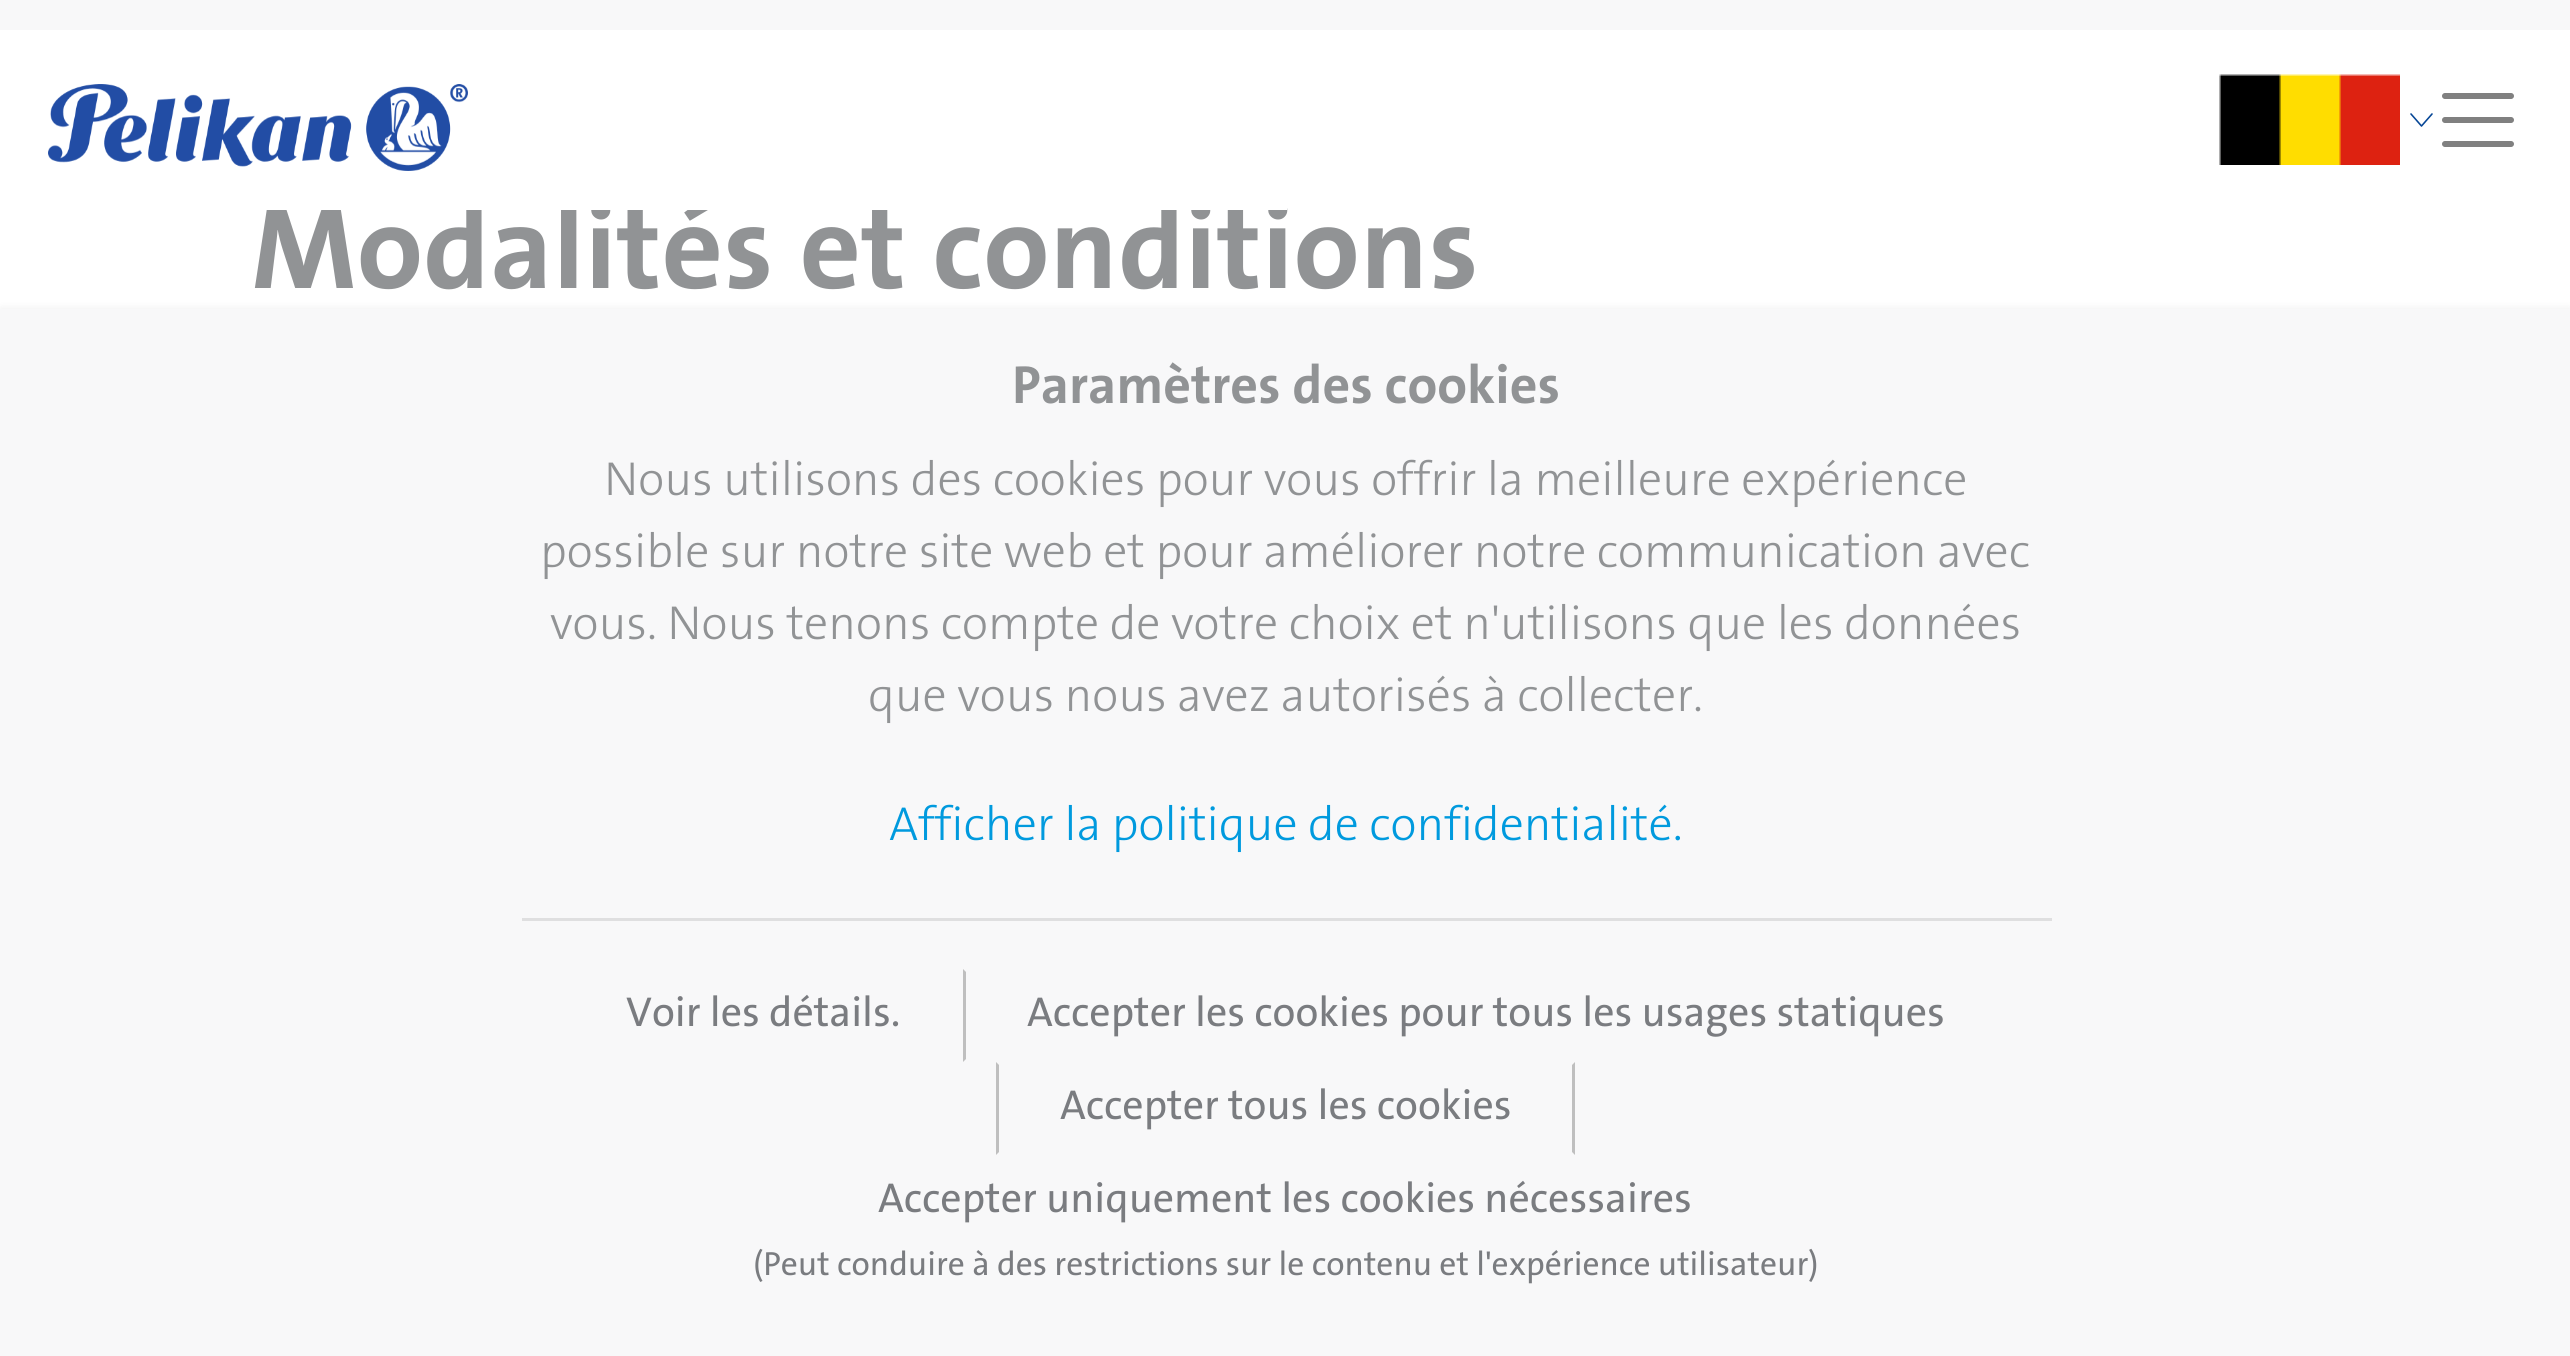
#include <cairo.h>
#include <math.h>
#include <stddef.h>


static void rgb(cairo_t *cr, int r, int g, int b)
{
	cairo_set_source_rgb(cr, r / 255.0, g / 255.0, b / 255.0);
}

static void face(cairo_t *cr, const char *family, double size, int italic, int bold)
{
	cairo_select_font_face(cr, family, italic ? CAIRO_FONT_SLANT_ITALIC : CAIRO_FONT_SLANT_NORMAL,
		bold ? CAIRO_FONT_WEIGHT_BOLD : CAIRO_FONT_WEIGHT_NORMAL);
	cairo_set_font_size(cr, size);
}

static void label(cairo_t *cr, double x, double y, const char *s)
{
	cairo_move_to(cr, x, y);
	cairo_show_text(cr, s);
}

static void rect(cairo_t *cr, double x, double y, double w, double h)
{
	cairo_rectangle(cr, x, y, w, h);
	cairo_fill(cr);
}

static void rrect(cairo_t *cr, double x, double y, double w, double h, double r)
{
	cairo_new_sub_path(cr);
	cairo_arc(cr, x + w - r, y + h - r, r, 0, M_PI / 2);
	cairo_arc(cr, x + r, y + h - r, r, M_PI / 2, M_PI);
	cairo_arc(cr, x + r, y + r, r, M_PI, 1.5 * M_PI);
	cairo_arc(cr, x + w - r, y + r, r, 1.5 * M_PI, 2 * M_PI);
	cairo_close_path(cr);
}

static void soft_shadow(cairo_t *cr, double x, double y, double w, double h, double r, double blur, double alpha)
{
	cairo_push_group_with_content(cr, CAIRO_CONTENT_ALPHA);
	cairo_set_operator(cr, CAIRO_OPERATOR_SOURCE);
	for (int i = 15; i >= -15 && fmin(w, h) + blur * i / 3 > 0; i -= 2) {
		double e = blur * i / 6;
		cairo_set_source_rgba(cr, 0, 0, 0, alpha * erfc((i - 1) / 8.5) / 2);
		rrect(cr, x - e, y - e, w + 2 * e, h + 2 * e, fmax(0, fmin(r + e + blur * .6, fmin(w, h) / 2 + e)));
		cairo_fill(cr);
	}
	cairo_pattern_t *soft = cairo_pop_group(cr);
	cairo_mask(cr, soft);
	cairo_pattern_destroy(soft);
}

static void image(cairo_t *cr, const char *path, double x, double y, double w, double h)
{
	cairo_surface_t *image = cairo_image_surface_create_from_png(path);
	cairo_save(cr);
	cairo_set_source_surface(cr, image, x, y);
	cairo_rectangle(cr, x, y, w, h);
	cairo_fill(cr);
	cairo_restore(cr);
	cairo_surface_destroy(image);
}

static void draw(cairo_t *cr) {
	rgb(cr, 255, 255, 255);
	cairo_paint(cr);
	rgb(cr, 248, 248, 249);
	rect(cr, 0, 0, 2570, 30);
	face(cr, "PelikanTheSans", 120, 0, 1);
	rgb(cr, 145, 147, 149);
	label(cr, 251, 288, "Modalités et conditions");
	rgb(cr, 255, 255, 255);
	rect(cr, 266, 197, 1021, 13);
	image(cr, "image0.png", 48, 84, 420, 87);
	image(cr, "image1.png", 2219, 74, 181, 91);
	cairo_new_path(cr);
	cairo_move_to(cr, 2432, 114);
	cairo_line_to(cr, 2421.5, 126);
	cairo_line_to(cr, 2411, 114);
	rgb(cr, 6, 70, 150);
	cairo_set_line_width(cr, 1.6);
	cairo_set_line_cap(cr, CAIRO_LINE_CAP_ROUND);
	cairo_set_line_join(cr, CAIRO_LINE_JOIN_ROUND);
	cairo_stroke(cr);
	cairo_new_path(cr);
	cairo_move_to(cr, 2445, 96);
	cairo_line_to(cr, 2511, 96);
	cairo_move_to(cr, 2445, 120);
	cairo_line_to(cr, 2511, 120);
	cairo_move_to(cr, 2445, 144);
	cairo_line_to(cr, 2511, 144);
	rgb(cr, 128, 128, 128);
	cairo_set_line_width(cr, 6);
	cairo_set_line_join(cr, CAIRO_LINE_JOIN_MITER);
	cairo_stroke(cr);
	rgb(cr, 0, 0, 0);
	soft_shadow(cr, 0, 309, 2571, 1047, 0, 4.5, 0.07);
	rgb(cr, 248, 248, 249);
	rect(cr, 0, 309, 2570, 1047);
	face(cr, "PelikanTheSans", 54, 0, 1);
	rgb(cr, 145, 147, 149);
	label(cr, 1012, 403, "Paramètres des cookies");
	face(cr, "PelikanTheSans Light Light", 48, 0, 0);
	label(cr, 604, 495, "Nous utilisons des cookies pour vous offrir la meilleure expérience");
	label(cr, 540, 567, "possible sur notre site web et pour améliorer notre communication avec");
	label(cr, 550, 639, "vous. Nous tenons compte de votre choix et n'utilisons que les données");
	label(cr, 868, 711, "que vous nous avez autorisés à collecter.");
	rgb(cr, 0, 154, 222);
	label(cr, 889, 840, "Afficher la politique de confidentialité.");
	rgb(cr, 223, 223, 224);
	rect(cr, 522, 918, 1530, 3);
	face(cr, "PelikanTheSans Medium", 42, 0, 0);
	rgb(cr, 122, 124, 128);
	label(cr, 626, 1026, "Voir les détails.");
	rgb(cr, 191, 191, 191);
	cairo_new_path(cr);
	cairo_move_to(cr, 963, 1062);
	cairo_line_to(cr, 963, 969);
	cairo_line_to(cr, 966, 972);
	cairo_line_to(cr, 966, 1059);
	cairo_close_path(cr);
	cairo_fill(cr);
	rgb(cr, 122, 124, 128);
	label(cr, 1027, 1026, "Accepter les cookies pour tous les usages statiques");
	rgb(cr, 191, 191, 191);
	cairo_new_path(cr);
	cairo_move_to(cr, 1575, 1062);
	cairo_line_to(cr, 1575, 1155);
	cairo_line_to(cr, 1572, 1152);
	cairo_line_to(cr, 1572, 1065);
	cairo_close_path(cr);
	cairo_fill(cr);
	cairo_new_path(cr);
	cairo_move_to(cr, 996, 1155);
	cairo_line_to(cr, 996, 1062);
	cairo_line_to(cr, 999, 1065);
	cairo_line_to(cr, 999, 1152);
	cairo_close_path(cr);
	cairo_fill(cr);
	rgb(cr, 122, 124, 128);
	label(cr, 1060, 1119, "Accepter tous les cookies");
	label(cr, 878, 1212, "Accepter uniquement les cookies nécessaires");
	face(cr, "PelikanTheSans Medium", 33.6, 0, 0);
	label(cr, 753, 1275, "(Peut conduire à des restrictions sur le contenu et l'expérience utilisateur)");
}

int main(void) {
	cairo_surface_t *surface = cairo_image_surface_create(CAIRO_FORMAT_RGB24, 2570, 1356);
	cairo_t *cr = cairo_create(surface);
	cairo_font_options_t *options = cairo_font_options_create();
	cairo_font_options_set_hint_metrics(options, CAIRO_HINT_METRICS_OFF);
	cairo_font_options_set_hint_style(options, CAIRO_HINT_STYLE_NONE);
	cairo_set_font_options(cr, options);
	cairo_set_miter_limit(cr, 4);
	draw(cr);
	cairo_surface_write_to_png(surface, "render.png");
	cairo_font_options_destroy(options);
	cairo_destroy(cr);
	cairo_surface_destroy(surface);
	return 0;
}
